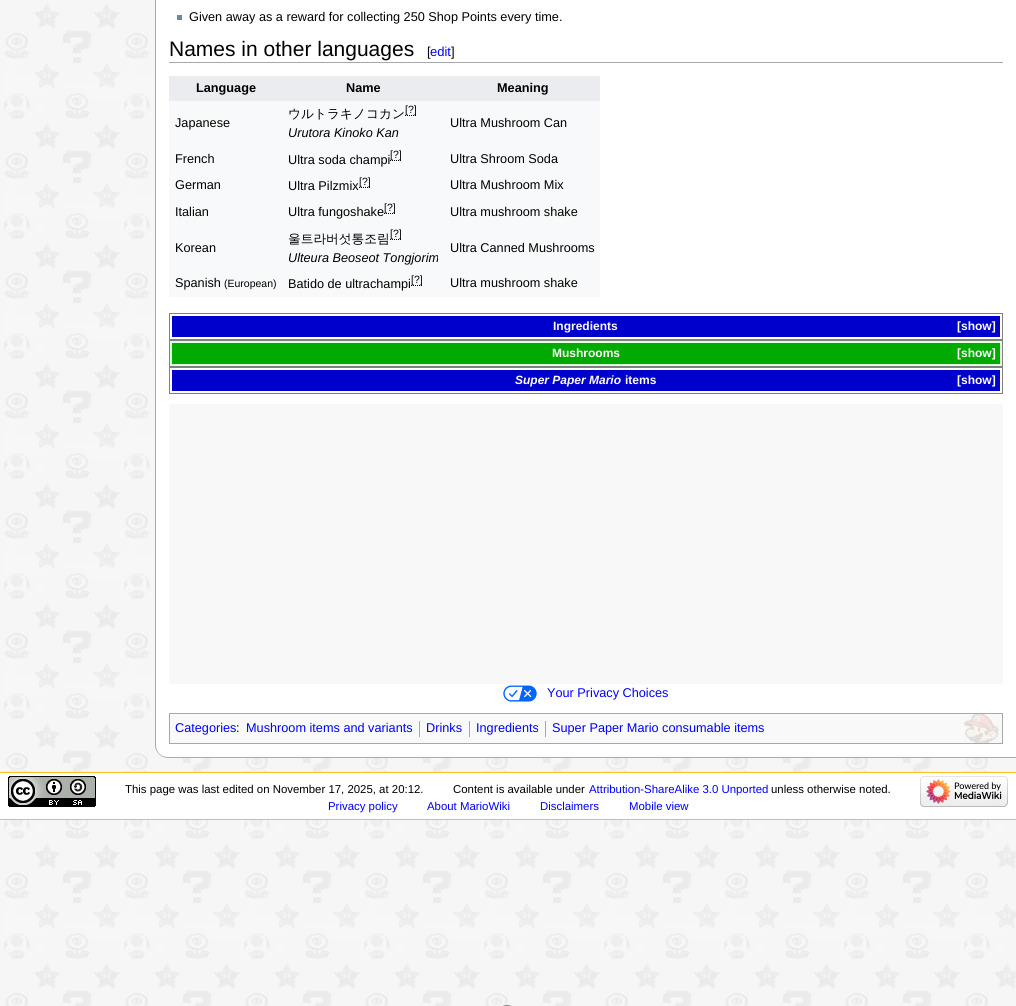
#include <cairo.h>
#include <math.h>
#include <stddef.h>


static void rgb(cairo_t *cr, int r, int g, int b)
{
	cairo_set_source_rgb(cr, r / 255.0, g / 255.0, b / 255.0);
}

static void face(cairo_t *cr, const char *family, double size, int italic, int bold)
{
	cairo_select_font_face(cr, family, italic ? CAIRO_FONT_SLANT_ITALIC : CAIRO_FONT_SLANT_NORMAL,
		bold ? CAIRO_FONT_WEIGHT_BOLD : CAIRO_FONT_WEIGHT_NORMAL);
	cairo_set_font_size(cr, size);
}

static void label(cairo_t *cr, double x, double y, const char *s)
{
	cairo_move_to(cr, x, y);
	cairo_show_text(cr, s);
}

static void rect(cairo_t *cr, double x, double y, double w, double h)
{
	cairo_rectangle(cr, x, y, w, h);
	cairo_fill(cr);
}

static void rrect(cairo_t *cr, double x, double y, double w, double h, double r)
{
	cairo_new_sub_path(cr);
	cairo_arc(cr, x + w - r, y + h - r, r, 0, M_PI / 2);
	cairo_arc(cr, x + r, y + h - r, r, M_PI / 2, M_PI);
	cairo_arc(cr, x + r, y + r, r, M_PI, 1.5 * M_PI);
	cairo_arc(cr, x + w - r, y + r, r, 1.5 * M_PI, 2 * M_PI);
	cairo_close_path(cr);
}

static void image(cairo_t *cr, const char *path, double x, double y, double w, double h)
{
	cairo_surface_t *image = cairo_image_surface_create_from_png(path);
	cairo_save(cr);
	cairo_set_source_surface(cr, image, x, y);
	cairo_rectangle(cr, x, y, w, h);
	cairo_fill(cr);
	cairo_restore(cr);
	cairo_surface_destroy(image);
}

static void draw(cairo_t *cr) {
	rgb(cr, 246, 246, 246);
	cairo_paint(cr);
	image(cr, "image0.png", 4, 4, 1012, 1002);
	rgb(cr, 255, 255, 255);
	cairo_new_path(cr);
	cairo_move_to(cr, 168, -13);
	cairo_line_to(cr, 1016, -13);
	cairo_line_to(cr, 1016, 758);
	cairo_line_to(cr, 168, 758);
	cairo_curve_to(cr, 161, 758, 155, 752, 155, 745);
	cairo_line_to(cr, 155, 0);
	cairo_curve_to(cr, 155, -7, 161, -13, 168, -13);
	cairo_close_path(cr);
	cairo_fill(cr);
	rgb(cr, 170, 170, 170);
	cairo_set_fill_rule(cr, CAIRO_FILL_RULE_EVEN_ODD);
	cairo_new_path(cr);
	cairo_move_to(cr, 168, -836);
	cairo_line_to(cr, 1016, -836);
	cairo_line_to(cr, 1016, 758);
	cairo_line_to(cr, 168, 758);
	cairo_curve_to(cr, 161, 758, 155, 752, 155, 745);
	cairo_line_to(cr, 155, -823);
	cairo_curve_to(cr, 155, -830, 161, -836, 168, -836);
	cairo_close_path(cr);
	cairo_move_to(cr, 168, -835);
	cairo_line_to(cr, 1016, -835);
	cairo_line_to(cr, 1016, 757);
	cairo_line_to(cr, 168, 757);
	cairo_curve_to(cr, 161, 757, 156, 752, 156, 745);
	cairo_line_to(cr, 156, -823);
	cairo_curve_to(cr, 156, -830, 161, -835, 168, -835);
	cairo_close_path(cr);
	cairo_fill(cr);
	rgb(cr, 99, 140, 156);
	rect(cr, 177, 15, 5, 5);
	face(cr, "Liberation Sans", 12.7, 0, 0);
	rgb(cr, 0, 0, 0);
	label(cr, 189, 21, "Given away as a reward for collecting 250 Shop Points every time.");
	rgb(cr, 162, 169, 177);
	rect(cr, 169, 62, 834, 1);
	face(cr, "Liberation Sans", 21, 0, 0);
	rgb(cr, 0, 0, 0);
	label(cr, 169, 56, "Names in other languages");
	face(cr, "Liberation Sans", 13, 0, 0);
	label(cr, 427, 56, "[");
	rgb(cr, 0, 0, 255);
	label(cr, 430, 56, "edit");
	rgb(cr, 0, 0, 0);
	label(cr, 451, 56, "]");
	rgb(cr, 234, 236, 240);
	rect(cr, 169, 76, 431, 25);
	face(cr, "Liberation Sans", 12.7, 0, 1);
	rgb(cr, 0, 0, 0);
	label(cr, 196, 92, "Language");
	label(cr, 346, 92, "Name");
	label(cr, 497, 92, "Meaning");
	rgb(cr, 248, 249, 250);
	rect(cr, 169, 101, 431, 196);
	face(cr, "Liberation Sans", 12.7, 0, 0);
	rgb(cr, 0, 0, 0);
	label(cr, 175, 127, "Japanese");
	face(cr, "WenQuanYi Zen Hei Medium", 12.7, 0, 0);
	label(cr, 288, 118, "ウルトラキノコカン");
	cairo_new_path(cr);
	cairo_move_to(cr, 405, 115.5);
	cairo_line_to(cr, 417, 115.5);
	cairo_set_line_width(cr, 1);
	cairo_set_dash(cr, (double[]){1, 1}, 2, 0);
	cairo_stroke(cr);
	face(cr, "Liberation Sans", 10.5, 0, 0);
	label(cr, 405, 113, "[?]");
	face(cr, "Liberation Sans", 12.7, 1, 0);
	label(cr, 288, 137, "Urutora Kinoko Kan");
	face(cr, "Liberation Sans", 12.7, 0, 0);
	label(cr, 450, 127, "Ultra Mushroom Can");
	label(cr, 175, 163, "French");
	label(cr, 288, 164, "Ultra soda champi");
	cairo_new_path(cr);
	cairo_move_to(cr, 390, 160.5);
	cairo_line_to(cr, 402, 160.5);
	cairo_stroke(cr);
	face(cr, "Liberation Sans", 10.5, 0, 0);
	label(cr, 390, 158, "[?]");
	face(cr, "Liberation Sans", 12.7, 0, 0);
	label(cr, 450, 163, "Ultra Shroom Soda");
	label(cr, 175, 189, "German");
	label(cr, 288, 190, "Ultra Pilzmix");
	cairo_new_path(cr);
	cairo_move_to(cr, 359, 187.5);
	cairo_line_to(cr, 370, 187.5);
	cairo_stroke(cr);
	face(cr, "Liberation Sans", 10.5, 0, 0);
	label(cr, 359, 185, "[?]");
	face(cr, "Liberation Sans", 12.7, 0, 0);
	label(cr, 450, 189, "Ultra Mushroom Mix");
	label(cr, 175, 216, "Italian");
	label(cr, 288, 216, "Ultra fungoshake");
	cairo_new_path(cr);
	cairo_move_to(cr, 384, 213.5);
	cairo_line_to(cr, 396, 213.5);
	cairo_stroke(cr);
	face(cr, "Liberation Sans", 10.5, 0, 0);
	label(cr, 384, 211, "[?]");
	face(cr, "Liberation Sans", 12.7, 0, 0);
	label(cr, 450, 216, "Ultra mushroom shake");
	label(cr, 175, 252, "Korean");
	face(cr, "WenQuanYi Zen Hei Medium", 12.7, 0, 0);
	label(cr, 288, 243, "울트라버섯통조림");
	cairo_new_path(cr);
	cairo_move_to(cr, 390, 239.5);
	cairo_line_to(cr, 401, 239.5);
	cairo_stroke(cr);
	face(cr, "Liberation Sans", 10.5, 0, 0);
	label(cr, 390, 237, "[?]");
	face(cr, "Liberation Sans", 12.7, 1, 0);
	label(cr, 288, 262, "Ulteura Beoseot Tongjorim");
	face(cr, "Liberation Sans", 12.7, 0, 0);
	label(cr, 450, 252, "Ultra Canned Mushrooms");
	label(cr, 175, 287, "Spanish");
	face(cr, "Liberation Sans", 10.5, 0, 0);
	label(cr, 224, 287, "(European)");
	face(cr, "Liberation Sans", 12.7, 0, 0);
	label(cr, 288, 288, "Batido de ultrachampi");
	cairo_new_path(cr);
	cairo_move_to(cr, 411, 285.5);
	cairo_line_to(cr, 423, 285.5);
	cairo_stroke(cr);
	face(cr, "Liberation Sans", 10.5, 0, 0);
	label(cr, 411, 283, "[?]");
	face(cr, "Liberation Sans", 12.7, 0, 0);
	label(cr, 450, 287, "Ultra mushroom shake");
	cairo_rectangle(cr, 169.5, 313.5, 833, 26);
	rgb(cr, 128, 128, 128);
	cairo_set_dash(cr, NULL, 0, 0);
	cairo_stroke(cr);
	rgb(cr, 0, 0, 204);
	rect(cr, 172, 316, 828, 21);
	face(cr, "Liberation Sans", 12, 0, 1);
	rgb(cr, 255, 255, 255);
	label(cr, 553, 330, "Ingredients");
	label(cr, 957, 330, "[show]");
	rgb(cr, 221, 255, 221);
	cairo_rectangle(cr, 169.5, 340.5, 833, 26);
	cairo_fill_preserve(cr);
	rgb(cr, 128, 128, 128);
	cairo_stroke(cr);
	rgb(cr, 0, 170, 0);
	rect(cr, 172, 343, 828, 21);
	rgb(cr, 255, 255, 255);
	label(cr, 552, 357, "Mushrooms");
	label(cr, 957, 357, "[show]");
	cairo_rectangle(cr, 169.5, 367.5, 833, 26);
	rgb(cr, 128, 128, 128);
	cairo_stroke(cr);
	rgb(cr, 0, 0, 204);
	rect(cr, 172, 370, 828, 21);
	face(cr, "Liberation Sans", 12, 1, 1);
	rgb(cr, 255, 255, 255);
	label(cr, 515, 384, "Super Paper Mario");
	face(cr, "Liberation Sans", 12, 0, 1);
	label(cr, 625, 384, "items");
	label(cr, 957, 384, "[show]");
	rgb(cr, 248, 248, 248);
	rect(cr, 169, 404, 834, 280);
	image(cr, "image1.png", 503, 685, 34, 17);
	face(cr, "Liberation Sans", 12.7, 0, 0);
	rgb(cr, 0, 0, 255);
	label(cr, 547, 697, "Your Privacy Choices");
	rgb(cr, 249, 249, 249);
	rect(cr, 170, 714, 832, 29);
	image(cr, "image2.png", 964, 714, 35, 29);
	cairo_rectangle(cr, 169.5, 713.5, 833, 30);
	rgb(cr, 162, 169, 177);
	cairo_stroke(cr);
	rgb(cr, 0, 0, 255);
	label(cr, 175, 732, "Categories");
	rgb(cr, 0, 0, 0);
	label(cr, 236, 732, ":");
	rgb(cr, 0, 0, 255);
	label(cr, 246, 732, "Mushroom items and variants");
	rgb(cr, 162, 169, 177);
	rect(cr, 419, 721, 1, 16);
	rgb(cr, 0, 0, 255);
	label(cr, 426, 732, "Drinks");
	rgb(cr, 162, 169, 177);
	rect(cr, 469, 721, 1, 16);
	rgb(cr, 0, 0, 255);
	label(cr, 476, 732, "Ingredients");
	rgb(cr, 162, 169, 177);
	rect(cr, 545, 721, 1, 16);
	rgb(cr, 0, 0, 255);
	label(cr, 552, 732, "Super Paper Mario consumable items");
	rgb(cr, 255, 255, 255);
	rect(cr, 0, 773, 1016, 46);
	rgb(cr, 250, 189, 35);
	rect(cr, 0, 772, 1016, 1);
	rect(cr, 0, 819, 1016, 1);
	image(cr, "image3.png", 8, 776, 88, 31);
	face(cr, "Liberation Sans", 11.4, 0, 0);
	rgb(cr, 0, 0, 0);
	label(cr, 125, 793, "This page was last edited on November 17, 2025, at 20:12.");
	label(cr, 453, 793, "Content is available under");
	rgb(cr, 0, 0, 255);
	label(cr, 589, 793, "Attribution-ShareAlike 3.0 Unported");
	rgb(cr, 0, 0, 0);
	label(cr, 771, 793, "unless otherwise noted.");
	rgb(cr, 0, 0, 255);
	label(cr, 328, 810, "Privacy policy");
	label(cr, 427, 810, "About MarioWiki");
	label(cr, 540, 810, "Disclaimers");
	label(cr, 629, 810, "Mobile view");
	image(cr, "image4.png", 920, 776, 88, 31);
	rrect(cr, 496.5, 1005.5, 21, 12, 10.5);
	cairo_set_source_rgba(cr, 0.969, 0.969, 0.969, 0.75);
	cairo_stroke(cr);
	rrect(cr, 496.5, 1005.5, 21, 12, 10.5);
	rgb(cr, 136, 136, 136);
	cairo_stroke(cr);
}

int main(void) {
	cairo_surface_t *surface = cairo_image_surface_create(CAIRO_FORMAT_RGB24, 1016, 1006);
	cairo_t *cr = cairo_create(surface);
	cairo_font_options_t *options = cairo_font_options_create();
	cairo_font_options_set_hint_metrics(options, CAIRO_HINT_METRICS_OFF);
	cairo_font_options_set_hint_style(options, CAIRO_HINT_STYLE_NONE);
	cairo_set_font_options(cr, options);
	cairo_set_miter_limit(cr, 4);
	draw(cr);
	cairo_surface_write_to_png(surface, "render.png");
	cairo_font_options_destroy(options);
	cairo_destroy(cr);
	cairo_surface_destroy(surface);
	return 0;
}
